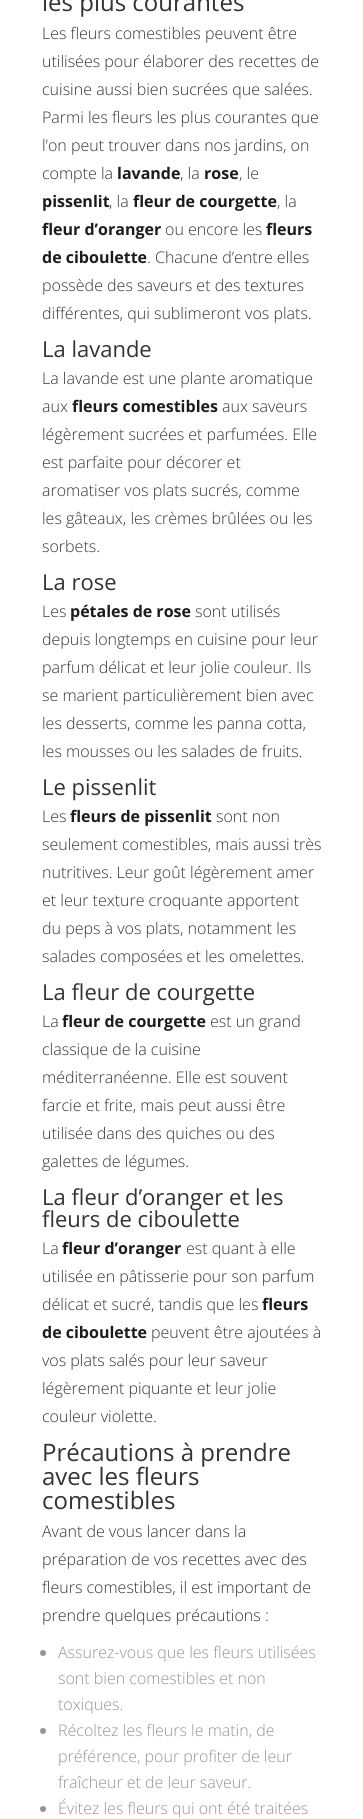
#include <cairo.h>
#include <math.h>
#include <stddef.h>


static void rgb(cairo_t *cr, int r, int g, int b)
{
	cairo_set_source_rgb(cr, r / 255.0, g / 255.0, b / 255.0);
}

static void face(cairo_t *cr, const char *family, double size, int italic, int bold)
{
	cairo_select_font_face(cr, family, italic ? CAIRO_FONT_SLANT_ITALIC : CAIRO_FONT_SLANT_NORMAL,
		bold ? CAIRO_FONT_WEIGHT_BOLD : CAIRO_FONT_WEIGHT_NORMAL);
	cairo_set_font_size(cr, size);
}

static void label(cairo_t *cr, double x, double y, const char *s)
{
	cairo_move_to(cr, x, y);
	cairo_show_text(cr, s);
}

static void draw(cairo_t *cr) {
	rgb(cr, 255, 255, 255);
	cairo_paint(cr);
	face(cr, "Open Sans", 24, 0, 0);
	rgb(cr, 51, 51, 51);
	label(cr, 42, 11, "les plus courantes");
	face(cr, "Open Sans Light", 16, 0, 0);
	label(cr, 42, 39, "Les fleurs comestibles peuvent être");
	label(cr, 42, 67, "utilisées pour élaborer des recettes de");
	label(cr, 42, 95, "cuisine aussi bien sucrées que salées.");
	label(cr, 42, 123, "Parmi les fleurs les plus courantes que");
	label(cr, 42, 151, "l’on peut trouver dans nos jardins, on");
	label(cr, 42, 179, "compte la");
	face(cr, "Open Sans", 16, 0, 1);
	rgb(cr, 28, 28, 28);
	label(cr, 117, 179, "lavande");
	face(cr, "Open Sans Light", 16, 0, 0);
	rgb(cr, 51, 51, 51);
	label(cr, 180, 179, ", la");
	face(cr, "Open Sans", 16, 0, 1);
	rgb(cr, 28, 28, 28);
	label(cr, 204, 179, "rose");
	face(cr, "Open Sans Light", 16, 0, 0);
	rgb(cr, 51, 51, 51);
	label(cr, 239, 179, ", le");
	face(cr, "Open Sans", 16, 0, 1);
	rgb(cr, 28, 28, 28);
	label(cr, 42, 207, "pissenlit");
	face(cr, "Open Sans Light", 16, 0, 0);
	rgb(cr, 51, 51, 51);
	label(cr, 109, 207, ", la");
	face(cr, "Open Sans", 16, 0, 1);
	rgb(cr, 28, 28, 28);
	label(cr, 133, 207, "fleur de courgette");
	face(cr, "Open Sans Light", 16, 0, 0);
	rgb(cr, 51, 51, 51);
	label(cr, 277, 207, ", la");
	face(cr, "Open Sans", 16, 0, 1);
	rgb(cr, 28, 28, 28);
	label(cr, 42, 235, "fleur d’oranger");
	face(cr, "Open Sans Light", 16, 0, 0);
	rgb(cr, 51, 51, 51);
	label(cr, 165, 235, "ou encore les");
	face(cr, "Open Sans", 16, 0, 1);
	rgb(cr, 28, 28, 28);
	label(cr, 266, 235, "fleurs");
	label(cr, 42, 263, "de ciboulette");
	face(cr, "Open Sans Light", 16, 0, 0);
	rgb(cr, 51, 51, 51);
	label(cr, 147, 263, ". Chacune d’entre elles");
	label(cr, 42, 291, "possède des saveurs et des textures");
	label(cr, 42, 319, "différentes, qui sublimeront vos plats.");
	face(cr, "Open Sans", 22, 0, 0);
	label(cr, 42, 357, "La lavande");
	face(cr, "Open Sans Light", 16, 0, 0);
	label(cr, 42, 384, "La lavande est une plante aromatique");
	label(cr, 42, 412, "aux");
	face(cr, "Open Sans", 16, 0, 1);
	rgb(cr, 28, 28, 28);
	label(cr, 72, 412, "fleurs comestibles");
	face(cr, "Open Sans Light", 16, 0, 0);
	rgb(cr, 51, 51, 51);
	label(cr, 222, 412, "aux saveurs");
	label(cr, 42, 440, "légèrement sucrées et parfumées. Elle");
	label(cr, 42, 468, "est parfaite pour décorer et");
	label(cr, 42, 496, "aromatiser vos plats sucrés, comme");
	label(cr, 42, 524, "les gâteaux, les crèmes brûlées ou les");
	label(cr, 42, 552, "sorbets.");
	face(cr, "Open Sans", 22, 0, 0);
	label(cr, 42, 590, "La rose");
	face(cr, "Open Sans Light", 16, 0, 0);
	label(cr, 42, 617, "Les");
	face(cr, "Open Sans", 16, 0, 1);
	rgb(cr, 28, 28, 28);
	label(cr, 70, 617, "pétales de rose");
	face(cr, "Open Sans Light", 16, 0, 0);
	rgb(cr, 51, 51, 51);
	label(cr, 195, 617, "sont utilisés");
	label(cr, 42, 645, "depuis longtemps en cuisine pour leur");
	label(cr, 42, 673, "parfum délicat et leur jolie couleur. Ils");
	label(cr, 42, 701, "se marient particulièrement bien avec");
	label(cr, 42, 729, "les desserts, comme les panna cotta,");
	label(cr, 42, 757, "les mousses ou les salades de fruits.");
	face(cr, "Open Sans", 22, 0, 0);
	label(cr, 42, 795, "Le pissenlit");
	face(cr, "Open Sans Light", 16, 0, 0);
	label(cr, 42, 822, "Les");
	face(cr, "Open Sans", 16, 0, 1);
	rgb(cr, 28, 28, 28);
	label(cr, 70, 822, "fleurs de pissenlit");
	face(cr, "Open Sans Light", 16, 0, 0);
	rgb(cr, 51, 51, 51);
	label(cr, 216, 822, "sont non");
	label(cr, 42, 850, "seulement comestibles, mais aussi très");
	label(cr, 42, 878, "nutritives. Leur goût légèrement amer");
	label(cr, 42, 906, "et leur texture croquante apportent");
	label(cr, 42, 934, "du peps à vos plats, notamment les");
	label(cr, 42, 962, "salades composées et les omelettes.");
	face(cr, "Open Sans", 22, 0, 0);
	label(cr, 42, 1000, "La fleur de courgette");
	face(cr, "Open Sans Light", 16, 0, 0);
	label(cr, 42, 1027, "La");
	face(cr, "Open Sans", 16, 0, 1);
	rgb(cr, 28, 28, 28);
	label(cr, 62, 1027, "fleur de courgette");
	face(cr, "Open Sans Light", 16, 0, 0);
	rgb(cr, 51, 51, 51);
	label(cr, 210, 1027, "est un grand");
	label(cr, 42, 1055, "classique de la cuisine");
	label(cr, 42, 1083, "méditerranéenne. Elle est souvent");
	label(cr, 42, 1111, "farcie et frite, mais peut aussi être");
	label(cr, 42, 1139, "utilisée dans des quiches ou des");
	label(cr, 42, 1167, "galettes de légumes.");
	face(cr, "Open Sans", 22, 0, 0);
	label(cr, 42, 1205, "La fleur d’oranger et les");
	label(cr, 42, 1227, "fleurs de ciboulette");
	face(cr, "Open Sans Light", 16, 0, 0);
	label(cr, 42, 1254, "La");
	face(cr, "Open Sans", 16, 0, 1);
	rgb(cr, 28, 28, 28);
	label(cr, 62, 1254, "fleur d’oranger");
	face(cr, "Open Sans Light", 16, 0, 0);
	rgb(cr, 51, 51, 51);
	label(cr, 186, 1254, "est quant à elle");
	label(cr, 42, 1282, "utilisée en pâtisserie pour son parfum");
	label(cr, 42, 1310, "délicat et sucré, tandis que les");
	face(cr, "Open Sans", 16, 0, 1);
	rgb(cr, 28, 28, 28);
	label(cr, 262, 1310, "fleurs");
	label(cr, 42, 1338, "de ciboulette");
	face(cr, "Open Sans Light", 16, 0, 0);
	rgb(cr, 51, 51, 51);
	label(cr, 151, 1338, "peuvent être ajoutées à");
	label(cr, 42, 1366, "vos plats salés pour leur saveur");
	label(cr, 42, 1394, "légèrement piquante et leur jolie");
	label(cr, 42, 1422, "couleur violette.");
	face(cr, "Open Sans", 24, 0, 0);
	label(cr, 42, 1461, "Précautions à prendre");
	label(cr, 42, 1485, "avec les fleurs");
	label(cr, 42, 1509, "comestibles");
	face(cr, "Open Sans Light", 16, 0, 0);
	label(cr, 42, 1537, "Avant de vous lancer dans la");
	label(cr, 42, 1565, "préparation de vos recettes avec des");
	label(cr, 42, 1593, "fleurs comestibles, il est important de");
	label(cr, 42, 1621, "prendre quelques précautions :");
	rgb(cr, 149, 148, 148);
	cairo_new_path(cr);
	cairo_arc(cr, 43, 1653, 3, 0, 2 * M_PI);
	cairo_fill(cr);
	label(cr, 58, 1658, "Assurez-vous que les fleurs utilisées");
	label(cr, 58, 1684, "sont bien comestibles et non");
	label(cr, 58, 1710, "toxiques.");
	cairo_new_path(cr);
	cairo_arc(cr, 43, 1731, 3, 0, 2 * M_PI);
	cairo_fill(cr);
	label(cr, 58, 1736, "Récoltez les fleurs le matin, de");
	label(cr, 58, 1762, "préférence, pour profiter de leur");
	label(cr, 58, 1788, "fraîcheur et de leur saveur.");
	cairo_new_path(cr);
	cairo_arc(cr, 43, 1809, 3, 0, 2 * M_PI);
	cairo_fill(cr);
	label(cr, 58, 1814, "Évitez les fleurs qui ont été traitées");
}

int main(void) {
	cairo_surface_t *surface = cairo_image_surface_create(CAIRO_FORMAT_RGB24, 363, 1819);
	cairo_t *cr = cairo_create(surface);
	cairo_font_options_t *options = cairo_font_options_create();
	cairo_font_options_set_hint_metrics(options, CAIRO_HINT_METRICS_OFF);
	cairo_font_options_set_hint_style(options, CAIRO_HINT_STYLE_NONE);
	cairo_set_font_options(cr, options);
	cairo_set_miter_limit(cr, 4);
	draw(cr);
	cairo_surface_write_to_png(surface, "render.png");
	cairo_font_options_destroy(options);
	cairo_destroy(cr);
	cairo_surface_destroy(surface);
	return 0;
}
